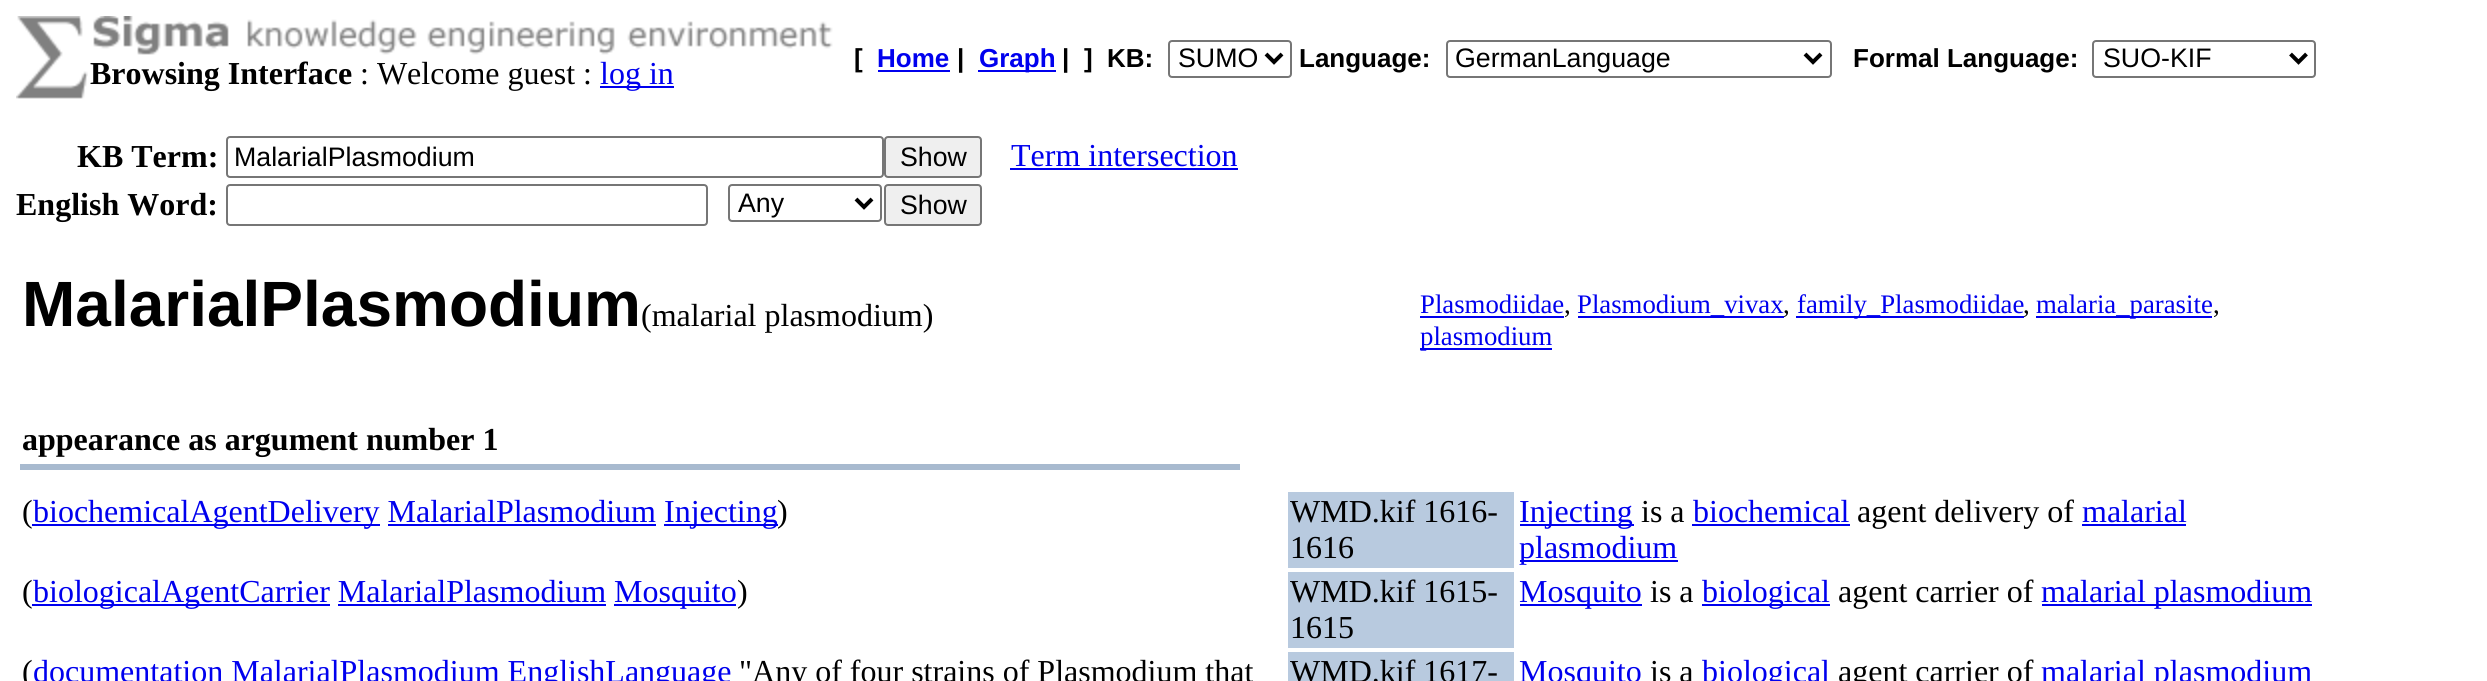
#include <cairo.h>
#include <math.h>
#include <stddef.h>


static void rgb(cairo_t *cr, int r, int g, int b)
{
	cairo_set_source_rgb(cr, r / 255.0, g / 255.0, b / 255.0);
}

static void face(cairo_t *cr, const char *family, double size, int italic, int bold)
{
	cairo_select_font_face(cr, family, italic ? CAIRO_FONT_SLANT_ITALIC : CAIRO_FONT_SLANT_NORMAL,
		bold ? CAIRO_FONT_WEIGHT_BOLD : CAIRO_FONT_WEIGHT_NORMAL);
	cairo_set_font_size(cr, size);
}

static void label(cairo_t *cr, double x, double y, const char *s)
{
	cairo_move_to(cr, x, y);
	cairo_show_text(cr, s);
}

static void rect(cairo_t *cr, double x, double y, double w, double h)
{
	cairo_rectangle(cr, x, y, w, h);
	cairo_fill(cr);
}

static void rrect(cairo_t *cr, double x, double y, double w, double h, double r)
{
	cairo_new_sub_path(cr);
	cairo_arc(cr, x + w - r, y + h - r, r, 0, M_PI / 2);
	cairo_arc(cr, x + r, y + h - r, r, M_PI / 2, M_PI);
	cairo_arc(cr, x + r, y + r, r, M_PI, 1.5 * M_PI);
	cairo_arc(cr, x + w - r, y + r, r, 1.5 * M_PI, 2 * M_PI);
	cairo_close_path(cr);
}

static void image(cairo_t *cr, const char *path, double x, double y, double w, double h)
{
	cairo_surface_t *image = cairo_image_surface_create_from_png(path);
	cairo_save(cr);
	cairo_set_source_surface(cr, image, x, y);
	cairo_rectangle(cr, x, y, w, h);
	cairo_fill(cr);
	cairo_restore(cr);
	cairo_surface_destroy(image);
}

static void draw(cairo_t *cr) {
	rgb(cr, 255, 255, 255);
	cairo_paint(cr);
	image(cr, "image0.png", 16, 16, 72, 83);
	image(cr, "image1.png", 93, 16, 740, 39);
	face(cr, "Liberation Serif", 32, 0, 1);
	rgb(cr, 0, 0, 0);
	label(cr, 90, 84, "Browsing Interface");
	face(cr, "Liberation Serif", 32, 0, 0);
	label(cr, 360, 84, ": Welcome guest :");
	rgb(cr, 0, 0, 238);
	rect(cr, 600, 86, 74, 2);
	label(cr, 600, 84, "log in");
	face(cr, "Liberation Sans", 26, 0, 1);
	rgb(cr, 0, 0, 0);
	label(cr, 854, 67, "[");
	rgb(cr, 0, 0, 238);
	label(cr, 877, 67, "Home");
	rect(cr, 878, 70, 72, 2);
	rgb(cr, 0, 0, 0);
	label(cr, 957, 67, "|");
	rgb(cr, 0, 0, 238);
	rect(cr, 978, 70, 78, 2);
	label(cr, 979, 67, "Graph");
	rgb(cr, 0, 0, 0);
	label(cr, 1062, 67, "|");
	label(cr, 1084, 67, "]");
	label(cr, 1107, 67, "KB:");
	rrect(cr, 1169, 41, 122, 36, 3);
	rgb(cr, 118, 118, 118);
	cairo_stroke(cr);
	cairo_new_path(cr);
	cairo_move_to(cr, 1266, 54);
	cairo_line_to(cr, 1274, 62);
	cairo_line_to(cr, 1282, 54);
	rgb(cr, 0, 0, 0);
	cairo_set_line_width(cr, 4);
	cairo_stroke(cr);
	face(cr, "Liberation Sans", 26.75, 0, 0);
	label(cr, 1178, 67, "SUMO");
	face(cr, "Liberation Sans", 26, 0, 1);
	label(cr, 1299, 67, "Language:");
	rrect(cr, 1447, 41, 384, 36, 3);
	rgb(cr, 118, 118, 118);
	cairo_set_line_width(cr, 2);
	cairo_stroke(cr);
	cairo_new_path(cr);
	cairo_move_to(cr, 1805, 54);
	cairo_line_to(cr, 1813, 62);
	cairo_line_to(cr, 1821, 54);
	rgb(cr, 0, 0, 0);
	cairo_set_line_width(cr, 4);
	cairo_stroke(cr);
	face(cr, "Liberation Sans", 26.75, 0, 0);
	label(cr, 1455, 67, "GermanLanguage");
	face(cr, "Liberation Sans", 26, 0, 1);
	label(cr, 1853, 67, "Formal Language:");
	rrect(cr, 2093, 41, 222, 36, 3);
	rgb(cr, 118, 118, 118);
	cairo_set_line_width(cr, 2);
	cairo_stroke(cr);
	cairo_new_path(cr);
	cairo_move_to(cr, 2290.5, 54);
	cairo_line_to(cr, 2298.5, 62);
	cairo_line_to(cr, 2306.5, 54);
	rgb(cr, 0, 0, 0);
	cairo_set_line_width(cr, 4);
	cairo_stroke(cr);
	face(cr, "Liberation Sans", 26.75, 0, 0);
	label(cr, 2103, 67, "SUO-KIF");
	face(cr, "Liberation Serif", 32, 0, 1);
	label(cr, 77, 167, "KB Term:");
	rrect(cr, 227, 137, 656, 40, 3);
	rgb(cr, 118, 118, 118);
	cairo_set_line_width(cr, 2);
	cairo_stroke(cr);
	face(cr, "Liberation Sans", 26.75, 0, 0);
	rgb(cr, 0, 0, 0);
	label(cr, 234, 166, "MalarialPlasmodium");
	rgb(cr, 239, 239, 239);
	rrect(cr, 885, 137, 96, 40, 3);
	cairo_fill_preserve(cr);
	rgb(cr, 118, 118, 118);
	cairo_stroke(cr);
	rgb(cr, 0, 0, 0);
	label(cr, 900, 166, "Show");
	face(cr, "Liberation Serif", 32, 0, 0);
	rgb(cr, 0, 0, 238);
	label(cr, 1011, 166, "Term intersection");
	rect(cr, 1010, 168, 228, 2);
	face(cr, "Liberation Serif", 32, 0, 1);
	rgb(cr, 0, 0, 0);
	label(cr, 16, 215, "English Word:");
	rrect(cr, 227, 185, 480, 40, 3);
	rgb(cr, 118, 118, 118);
	cairo_stroke(cr);
	rrect(cr, 729, 185, 152, 36, 3);
	cairo_stroke(cr);
	cairo_new_path(cr);
	cairo_move_to(cr, 856, 199);
	cairo_line_to(cr, 864, 207);
	cairo_line_to(cr, 872, 199);
	rgb(cr, 0, 0, 0);
	cairo_set_line_width(cr, 4);
	cairo_stroke(cr);
	face(cr, "Liberation Sans", 26.75, 0, 0);
	label(cr, 738, 212, "Any");
	rgb(cr, 239, 239, 239);
	rrect(cr, 885, 185, 96, 40, 3);
	cairo_fill_preserve(cr);
	rgb(cr, 118, 118, 118);
	cairo_set_line_width(cr, 2);
	cairo_stroke(cr);
	rgb(cr, 0, 0, 0);
	label(cr, 900, 214, "Show");
	face(cr, "Liberation Sans", 64, 0, 1);
	label(cr, 22, 326, "MalarialPlasmodium");
	face(cr, "Liberation Serif", 32, 0, 0);
	label(cr, 641, 326, "(malarial plasmodium)");
	face(cr, "Liberation Serif", 26.75, 0, 0);
	rgb(cr, 0, 0, 238);
	label(cr, 1420, 313, "Plasmodiidae");
	rgb(cr, 0, 0, 0);
	label(cr, 1564, 313, ",");
	rgb(cr, 0, 0, 238);
	rect(cr, 1420, 316, 144, 2);
	rect(cr, 1578, 316, 206, 2);
	label(cr, 1577, 313, "Plasmodium_vivax");
	rgb(cr, 0, 0, 0);
	label(cr, 1783, 313, ",");
	rgb(cr, 0, 0, 238);
	rect(cr, 1796, 316, 228, 2);
	label(cr, 1797, 313, "family_Plasmodiidae");
	rgb(cr, 0, 0, 0);
	label(cr, 2023, 313, ",");
	rgb(cr, 0, 0, 238);
	rect(cr, 2036, 316, 176, 2);
	label(cr, 2036, 313, "malaria_parasite");
	rgb(cr, 0, 0, 0);
	label(cr, 2213, 313, ",");
	rgb(cr, 0, 0, 238);
	rect(cr, 1420, 348, 132, 2);
	label(cr, 1420, 345, "plasmodium");
	face(cr, "Liberation Serif", 32, 0, 1);
	rgb(cr, 0, 0, 0);
	label(cr, 22, 450, "appearance as argument number 1");
	rgb(cr, 168, 186, 207);
	rect(cr, 20, 464, 1220, 6);
	face(cr, "Liberation Serif", 32, 0, 0);
	rgb(cr, 0, 0, 0);
	label(cr, 22, 522, "(");
	rgb(cr, 0, 0, 238);
	rect(cr, 32, 524, 348, 2);
	label(cr, 33, 522, "biochemicalAgentDelivery MalarialPlasmodium");
	rect(cr, 664, 524, 114, 2);
	label(cr, 664, 522, "Injecting");
	rgb(cr, 0, 0, 0);
	label(cr, 777, 522, ")");
	rgb(cr, 0, 0, 238);
	rect(cr, 388, 524, 268, 2);
	rgb(cr, 184, 202, 223);
	rect(cr, 1288, 492, 226, 76);
	rgb(cr, 0, 0, 0);
	label(cr, 1290, 522, "WMD.kif 1616-");
	label(cr, 1290, 558, "1616");
	rgb(cr, 0, 0, 238);
	rect(cr, 1520, 524, 114, 2);
	label(cr, 1519, 522, "Injecting");
	rgb(cr, 0, 0, 0);
	label(cr, 1641, 522, "is a");
	rgb(cr, 0, 0, 238);
	label(cr, 1693, 522, "biochemical");
	rect(cr, 1692, 524, 158, 2);
	rgb(cr, 0, 0, 0);
	label(cr, 1857, 522, "agent delivery of");
	rgb(cr, 0, 0, 238);
	label(cr, 2082, 522, "malarial");
	rect(cr, 2082, 524, 104, 2);
	rect(cr, 1520, 560, 158, 2);
	label(cr, 1519, 558, "plasmodium");
	rgb(cr, 0, 0, 0);
	label(cr, 22, 602, "(");
	rgb(cr, 0, 0, 238);
	rect(cr, 32, 604, 298, 2);
	label(cr, 33, 602, "biologicalAgentCarrier MalarialPlasmodium");
	rect(cr, 614, 604, 122, 2);
	label(cr, 614, 602, "Mosquito");
	rgb(cr, 0, 0, 0);
	label(cr, 737, 602, ")");
	rgb(cr, 0, 0, 238);
	rect(cr, 338, 604, 268, 2);
	rgb(cr, 184, 202, 223);
	rect(cr, 1288, 572, 226, 76);
	rgb(cr, 0, 0, 0);
	label(cr, 1290, 602, "WMD.kif 1615-");
	label(cr, 1290, 638, "1615");
	rgb(cr, 0, 0, 238);
	rect(cr, 1520, 604, 122, 2);
	label(cr, 1519, 602, "Mosquito");
	rgb(cr, 0, 0, 0);
	label(cr, 1650, 602, "is a");
	rgb(cr, 0, 0, 238);
	rect(cr, 1702, 604, 128, 2);
	label(cr, 1702, 602, "biological");
	rgb(cr, 0, 0, 0);
	label(cr, 1838, 602, "agent carrier of");
	rgb(cr, 0, 0, 238);
	rect(cr, 2042, 604, 270, 2);
	label(cr, 2041, 602, "malarial plasmodium");
	rgb(cr, 0, 0, 0);
	label(cr, 22, 682, "(");
	rgb(cr, 0, 0, 238);
	label(cr, 33, 682, "documentation MalarialPlasmodium EnglishLanguage");
	rgb(cr, 0, 0, 0);
	label(cr, 739, 682, "\"Any of four strains of Plasmodium that");
	rgb(cr, 184, 202, 223);
	rect(cr, 1288, 652, 226, 29);
	rgb(cr, 0, 0, 0);
	label(cr, 1290, 682, "WMD.kif 1617-");
	rgb(cr, 0, 0, 238);
	label(cr, 1519, 682, "Mosquito");
	rgb(cr, 0, 0, 0);
	label(cr, 1650, 682, "is a");
	rgb(cr, 0, 0, 238);
	label(cr, 1702, 682, "biological");
	rgb(cr, 0, 0, 0);
	label(cr, 1838, 682, "agent carrier of");
	rgb(cr, 0, 0, 238);
	label(cr, 2041, 682, "malarial plasmodium");
}

int main(void) {
	cairo_surface_t *surface = cairo_image_surface_create(CAIRO_FORMAT_RGB24, 2487, 681);
	cairo_t *cr = cairo_create(surface);
	cairo_font_options_t *options = cairo_font_options_create();
	cairo_font_options_set_hint_metrics(options, CAIRO_HINT_METRICS_OFF);
	cairo_font_options_set_hint_style(options, CAIRO_HINT_STYLE_NONE);
	cairo_set_font_options(cr, options);
	cairo_set_miter_limit(cr, 4);
	draw(cr);
	cairo_surface_write_to_png(surface, "render.png");
	cairo_font_options_destroy(options);
	cairo_destroy(cr);
	cairo_surface_destroy(surface);
	return 0;
}
